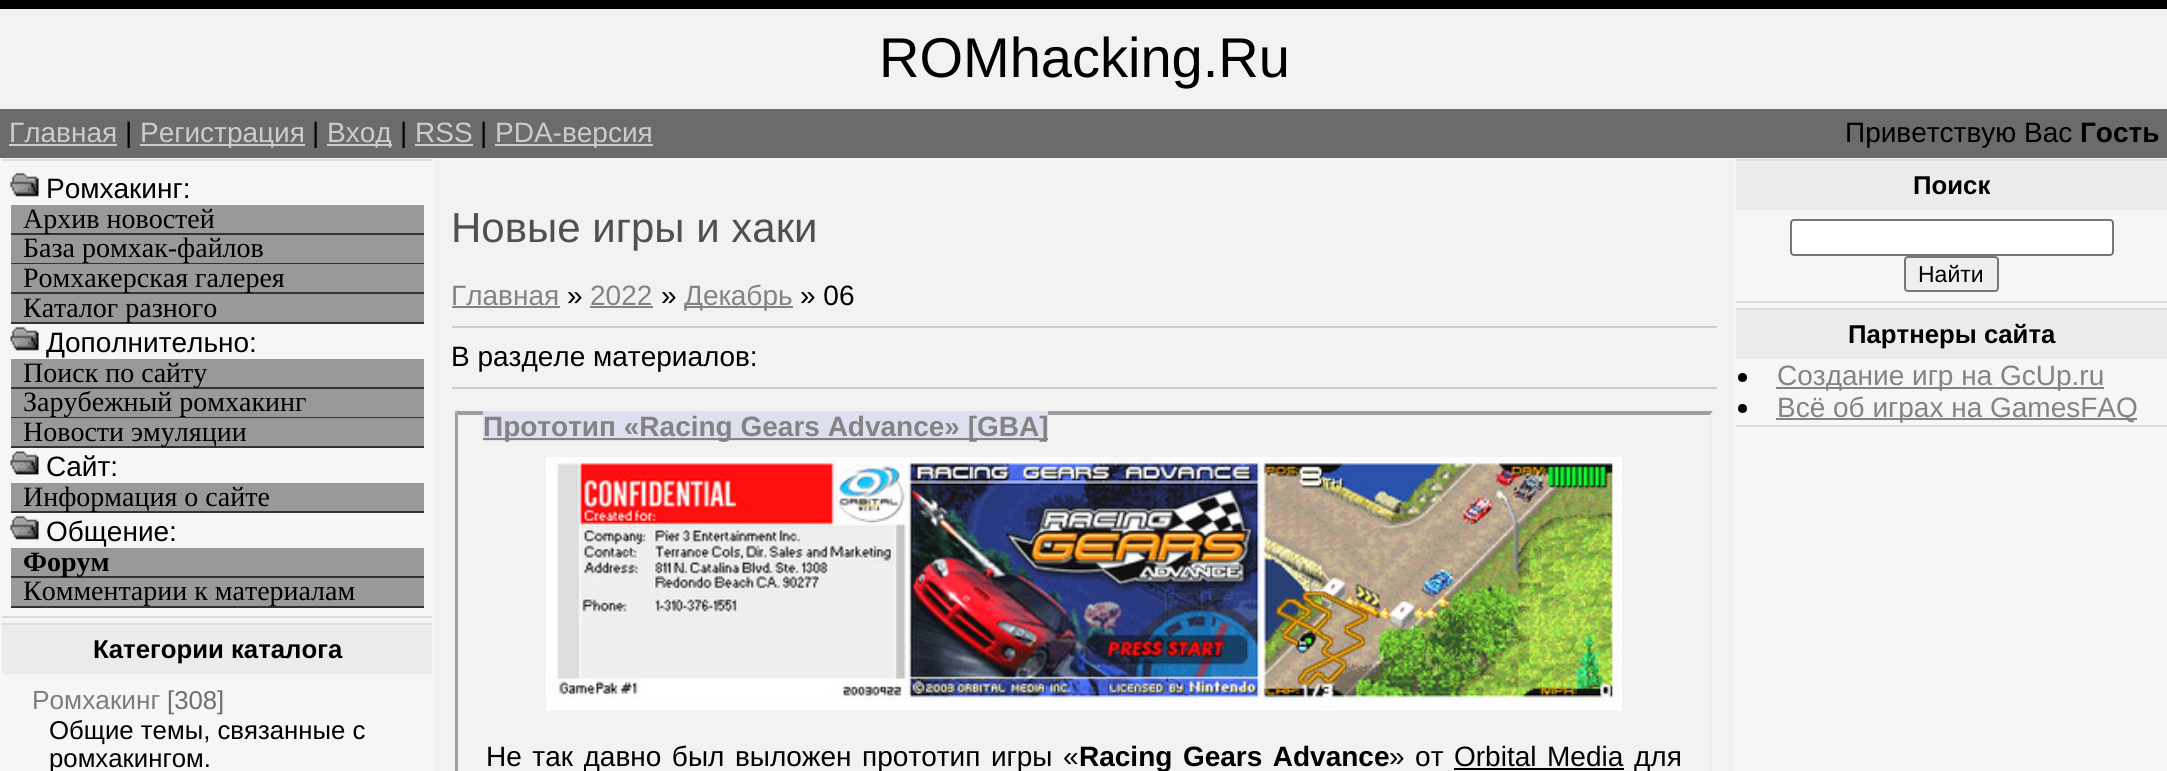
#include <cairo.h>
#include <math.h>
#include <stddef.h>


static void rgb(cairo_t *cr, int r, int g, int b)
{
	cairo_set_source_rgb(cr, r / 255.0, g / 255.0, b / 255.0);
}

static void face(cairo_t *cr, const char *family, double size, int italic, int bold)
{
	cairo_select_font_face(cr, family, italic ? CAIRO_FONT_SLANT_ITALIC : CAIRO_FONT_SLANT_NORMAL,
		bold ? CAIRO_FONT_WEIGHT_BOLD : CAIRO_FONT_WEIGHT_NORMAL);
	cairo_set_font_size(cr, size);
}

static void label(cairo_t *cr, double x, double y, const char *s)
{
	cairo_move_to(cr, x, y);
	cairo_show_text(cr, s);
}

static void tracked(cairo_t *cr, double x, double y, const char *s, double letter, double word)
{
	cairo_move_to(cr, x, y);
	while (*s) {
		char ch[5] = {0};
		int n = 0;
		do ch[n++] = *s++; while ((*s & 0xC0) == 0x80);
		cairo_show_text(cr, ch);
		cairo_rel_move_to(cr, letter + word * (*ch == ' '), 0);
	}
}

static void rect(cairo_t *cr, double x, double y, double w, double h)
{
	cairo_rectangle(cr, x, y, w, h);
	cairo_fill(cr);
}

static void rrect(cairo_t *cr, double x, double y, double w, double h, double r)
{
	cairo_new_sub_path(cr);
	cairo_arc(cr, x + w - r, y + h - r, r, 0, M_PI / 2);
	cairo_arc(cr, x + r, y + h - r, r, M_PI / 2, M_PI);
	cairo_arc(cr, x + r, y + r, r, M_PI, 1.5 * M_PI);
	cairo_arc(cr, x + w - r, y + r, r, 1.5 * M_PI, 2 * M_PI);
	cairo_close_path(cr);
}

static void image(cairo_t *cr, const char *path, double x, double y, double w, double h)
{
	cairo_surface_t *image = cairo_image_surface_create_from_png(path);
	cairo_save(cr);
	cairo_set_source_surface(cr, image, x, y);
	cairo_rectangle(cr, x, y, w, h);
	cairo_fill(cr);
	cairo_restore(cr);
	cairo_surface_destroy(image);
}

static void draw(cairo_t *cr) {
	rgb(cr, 242, 242, 242);
	cairo_paint(cr);
	rgb(cr, 0, 0, 0);
	rect(cr, 0, 0, 2167, 9);
	face(cr, "Liberation Sans", 56, 0, 0);
	label(cr, 879, 77, "ROMhacking.Ru");
	rgb(cr, 107, 107, 107);
	rect(cr, 0, 109, 2167, 49);
	face(cr, "Liberation Sans", 28, 0, 0);
	rgb(cr, 204, 204, 204);
	label(cr, 9, 142, "Главная");
	rect(cr, 9, 144, 108, 2);
	rgb(cr, 0, 0, 0);
	label(cr, 125, 142, "|");
	rgb(cr, 204, 204, 204);
	rect(cr, 140, 144, 165, 2);
	label(cr, 140, 142, "Регистрация");
	rgb(cr, 0, 0, 0);
	label(cr, 312, 142, "|");
	rgb(cr, 204, 204, 204);
	rect(cr, 327, 144, 65, 2);
	label(cr, 327, 142, "Вход");
	rgb(cr, 0, 0, 0);
	label(cr, 400, 142, "|");
	rgb(cr, 204, 204, 204);
	label(cr, 415, 142, "RSS");
	rect(cr, 415, 144, 58, 2);
	rgb(cr, 0, 0, 0);
	label(cr, 480, 142, "|");
	rgb(cr, 204, 204, 204);
	rect(cr, 495, 144, 158, 2);
	label(cr, 495, 142, "PDA-версия");
	rgb(cr, 0, 0, 0);
	label(cr, 1845, 142, "Приветствую Вас");
	face(cr, "Liberation Sans", 28, 0, 1);
	label(cr, 2080, 142, "Гость");
	rgb(cr, 246, 246, 246);
	rect(cr, 0, 158, 434, 613);
	rgb(cr, 221, 221, 221);
	rect(cr, 2, 159, 430, 2);
	rect(cr, 2, 616, 430, 2);
	image(cr, "image0.png", 10, 172, 29, 25);
	face(cr, "Liberation Sans", 28, 0, 0);
	rgb(cr, 0, 0, 0);
	label(cr, 46, 198, "Ромхакинг:");
	rgb(cr, 153, 153, 153);
	rect(cr, 11, 205, 413, 28);
	rgb(cr, 51, 51, 51);
	rect(cr, 11, 233, 413, 2);
	face(cr, "Liberation Serif", 28, 0, 0);
	rgb(cr, 0, 0, 0);
	label(cr, 23, 228, "Архив новостей");
	rgb(cr, 153, 153, 153);
	rect(cr, 11, 235, 413, 28);
	rgb(cr, 51, 51, 51);
	rect(cr, 11, 263, 413, 1);
	rgb(cr, 0, 0, 0);
	label(cr, 23, 257, "База ромхак-файлов");
	rgb(cr, 153, 153, 153);
	rect(cr, 11, 264, 413, 28);
	rgb(cr, 51, 51, 51);
	rect(cr, 11, 292, 413, 2);
	rgb(cr, 0, 0, 0);
	label(cr, 23, 287, "Ромхакерская галерея");
	rgb(cr, 153, 153, 153);
	rect(cr, 11, 294, 413, 28);
	rgb(cr, 51, 51, 51);
	rect(cr, 11, 322, 413, 2);
	rgb(cr, 0, 0, 0);
	label(cr, 23, 317, "Каталог разного");
	image(cr, "image0.png", 10, 326, 29, 25);
	face(cr, "Liberation Sans", 28, 0, 0);
	label(cr, 46, 352, "Дополнительно:");
	rgb(cr, 153, 153, 153);
	rect(cr, 11, 359, 413, 28);
	rgb(cr, 51, 51, 51);
	rect(cr, 11, 387, 413, 2);
	face(cr, "Liberation Serif", 28, 0, 0);
	rgb(cr, 0, 0, 0);
	label(cr, 23, 382, "Поиск по сайту");
	rgb(cr, 153, 153, 153);
	rect(cr, 11, 389, 413, 28);
	rgb(cr, 51, 51, 51);
	rect(cr, 11, 417, 413, 1);
	rgb(cr, 0, 0, 0);
	label(cr, 23, 411, "Зарубежный ромхакинг");
	rgb(cr, 153, 153, 153);
	rect(cr, 11, 418, 413, 28);
	rgb(cr, 51, 51, 51);
	rect(cr, 11, 446, 413, 2);
	rgb(cr, 0, 0, 0);
	label(cr, 23, 441, "Новости эмуляции");
	image(cr, "image1.png", 10, 451, 29, 24);
	face(cr, "Liberation Sans", 28, 0, 0);
	label(cr, 46, 476, "Cайт:");
	rgb(cr, 153, 153, 153);
	rect(cr, 11, 483, 413, 28);
	rgb(cr, 51, 51, 51);
	rect(cr, 11, 511, 413, 2);
	face(cr, "Liberation Serif", 28, 0, 0);
	rgb(cr, 0, 0, 0);
	label(cr, 23, 506, "Информация о сайте");
	image(cr, "image0.png", 10, 515, 29, 25);
	face(cr, "Liberation Sans", 28, 0, 0);
	label(cr, 46, 541, "Общение:");
	rgb(cr, 153, 153, 153);
	rect(cr, 11, 548, 413, 28);
	rgb(cr, 51, 51, 51);
	rect(cr, 11, 576, 413, 2);
	face(cr, "Liberation Serif", 28, 0, 1);
	rgb(cr, 0, 0, 0);
	label(cr, 23, 571, "Форум");
	rgb(cr, 153, 153, 153);
	rect(cr, 11, 578, 413, 28);
	rgb(cr, 51, 51, 51);
	rect(cr, 11, 606, 413, 2);
	face(cr, "Liberation Serif", 28, 0, 0);
	rgb(cr, 0, 0, 0);
	label(cr, 23, 600, "Комментарии к материалам");
	rgb(cr, 221, 221, 221);
	rect(cr, 2, 623, 430, 2);
	rgb(cr, 235, 235, 235);
	rect(cr, 2, 625, 430, 49);
	face(cr, "Liberation Sans", 25.75, 0, 1);
	rgb(cr, 0, 0, 0);
	label(cr, 93, 658, "Категории каталога");
	face(cr, "Liberation Sans", 26.25, 0, 0);
	rgb(cr, 125, 125, 125);
	label(cr, 32, 709, "Ромхакинг");
	face(cr, "Liberation Sans", 25.75, 0, 0);
	rgb(cr, 110, 110, 110);
	label(cr, 167, 709, "[308]");
	rgb(cr, 0, 0, 0);
	label(cr, 49, 739, "Общие темы, связанные с");
	label(cr, 49, 767, "ромхакингом.");
	face(cr, "Liberation Sans", 42, 0, 0);
	rgb(cr, 80, 80, 80);
	label(cr, 451, 242, "Новые игры и хаки");
	face(cr, "Liberation Sans", 28, 0, 0);
	rgb(cr, 131, 131, 131);
	label(cr, 451, 305, "Главная");
	rect(cr, 452, 306, 108, 2);
	rgb(cr, 0, 0, 0);
	label(cr, 567, 305, "»");
	rgb(cr, 131, 131, 131);
	label(cr, 590, 305, "2022");
	rect(cr, 590, 306, 63, 2);
	rgb(cr, 0, 0, 0);
	label(cr, 661, 305, "»");
	rgb(cr, 131, 131, 131);
	rect(cr, 684, 306, 109, 2);
	label(cr, 684, 305, "Декабрь");
	rgb(cr, 0, 0, 0);
	label(cr, 800, 305, "» 06");
	rgb(cr, 204, 204, 204);
	rect(cr, 452, 326, 1265, 2);
	rgb(cr, 0, 0, 0);
	label(cr, 451, 366, "В разделе материалов:");
	rgb(cr, 204, 204, 204);
	rect(cr, 452, 387, 1265, 2);
	rgb(cr, 159, 159, 159);
	cairo_new_path(cr);
	cairo_move_to(cr, 455, 411);
	cairo_line_to(cr, 1713, 411);
	cairo_line_to(cr, 1710, 415);
	cairo_line_to(cr, 458, 415);
	cairo_close_path(cr);
	cairo_fill(cr);
	rgb(cr, 239, 239, 239);
	cairo_new_path(cr);
	cairo_move_to(cr, 1713, 411);
	cairo_line_to(cr, 1713, 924);
	cairo_line_to(cr, 1710, 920);
	cairo_line_to(cr, 1710, 415);
	cairo_close_path(cr);
	cairo_fill(cr);
	rgb(cr, 159, 159, 159);
	cairo_new_path(cr);
	cairo_move_to(cr, 455, 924);
	cairo_line_to(cr, 455, 411);
	cairo_line_to(cr, 458, 415);
	cairo_line_to(cr, 458, 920);
	cairo_close_path(cr);
	cairo_fill(cr);
	rgb(cr, 222, 223, 239);
	rect(cr, 483, 411, 565, 30);
	rgb(cr, 131, 131, 131);
	rect(cr, 483, 438, 565, 2);
	face(cr, "Liberation Sans", 28, 0, 1);
	label(cr, 483, 436, "Прототип «Racing Gears Advance» [GBA]");
	image(cr, "image2.png", 546, 457, 1076, 254);
	face(cr, "Liberation Sans", 28, 0, 0);
	rgb(cr, 0, 0, 0);
	tracked(cr, 486, 766, "Не так давно был выложен прототип игры «", 0, 2.75);
	face(cr, "Liberation Sans", 28, 0, 1);
	tracked(cr, 1079, 766, "Racing Gears Advance", 0, 2.75);
	face(cr, "Liberation Sans", 28, 0, 0);
	tracked(cr, 1389, 766, "» от", 0, 2.75);
	tracked(cr, 1454, 766, "Orbital Media", 0, 2.75);
	rect(cr, 1454, 768, 170, 2);
	label(cr, 1634, 766, "для");
	rgb(cr, 246, 246, 246);
	rect(cr, 1734, 158, 433, 613);
	rgb(cr, 221, 221, 221);
	rect(cr, 1736, 159, 431, 2);
	rect(cr, 1736, 301, 431, 2);
	rgb(cr, 235, 235, 235);
	rect(cr, 1736, 161, 431, 49);
	face(cr, "Liberation Sans", 25.75, 0, 1);
	rgb(cr, 0, 0, 0);
	label(cr, 1913, 194, "Поиск");
	rgb(cr, 255, 255, 255);
	rrect(cr, 1791, 220, 322, 35, 3);
	cairo_fill_preserve(cr);
	rgb(cr, 118, 118, 118);
	cairo_stroke(cr);
	rgb(cr, 239, 239, 239);
	rrect(cr, 1905, 257, 93, 34, 3);
	cairo_fill_preserve(cr);
	rgb(cr, 118, 118, 118);
	cairo_stroke(cr);
	face(cr, "Liberation Sans", 23, 0, 0);
	rgb(cr, 0, 0, 0);
	label(cr, 1918, 282, "Найти");
	rgb(cr, 221, 221, 221);
	rect(cr, 1736, 308, 431, 2);
	rect(cr, 1736, 425, 431, 2);
	rgb(cr, 235, 235, 235);
	rect(cr, 1736, 310, 431, 49);
	face(cr, "Liberation Sans", 25.75, 0, 1);
	rgb(cr, 0, 0, 0);
	label(cr, 1848, 343, "Партнеры сайта");
	cairo_new_path(cr);
	cairo_arc(cr, 1742.5, 377.5, 4.5, 0, 2 * M_PI);
	cairo_fill(cr);
	rgb(cr, 131, 131, 131);
	rect(cr, 1776, 387, 328, 2);
	face(cr, "Liberation Sans", 28, 0, 0);
	label(cr, 1777, 385, "Создание игр на GcUp.ru");
	rgb(cr, 0, 0, 0);
	cairo_new_path(cr);
	cairo_arc(cr, 1742.5, 408.5, 4.5, 0, 2 * M_PI);
	cairo_fill(cr);
	rgb(cr, 131, 131, 131);
	rect(cr, 1776, 418, 361, 2);
	label(cr, 1777, 417, "Всё об играх на GamesFAQ");
}

int main(void) {
	cairo_surface_t *surface = cairo_image_surface_create(CAIRO_FORMAT_RGB24, 2167, 771);
	cairo_t *cr = cairo_create(surface);
	cairo_font_options_t *options = cairo_font_options_create();
	cairo_font_options_set_hint_metrics(options, CAIRO_HINT_METRICS_OFF);
	cairo_font_options_set_hint_style(options, CAIRO_HINT_STYLE_NONE);
	cairo_set_font_options(cr, options);
	cairo_set_miter_limit(cr, 4);
	draw(cr);
	cairo_surface_write_to_png(surface, "render.png");
	cairo_font_options_destroy(options);
	cairo_destroy(cr);
	cairo_surface_destroy(surface);
	return 0;
}
